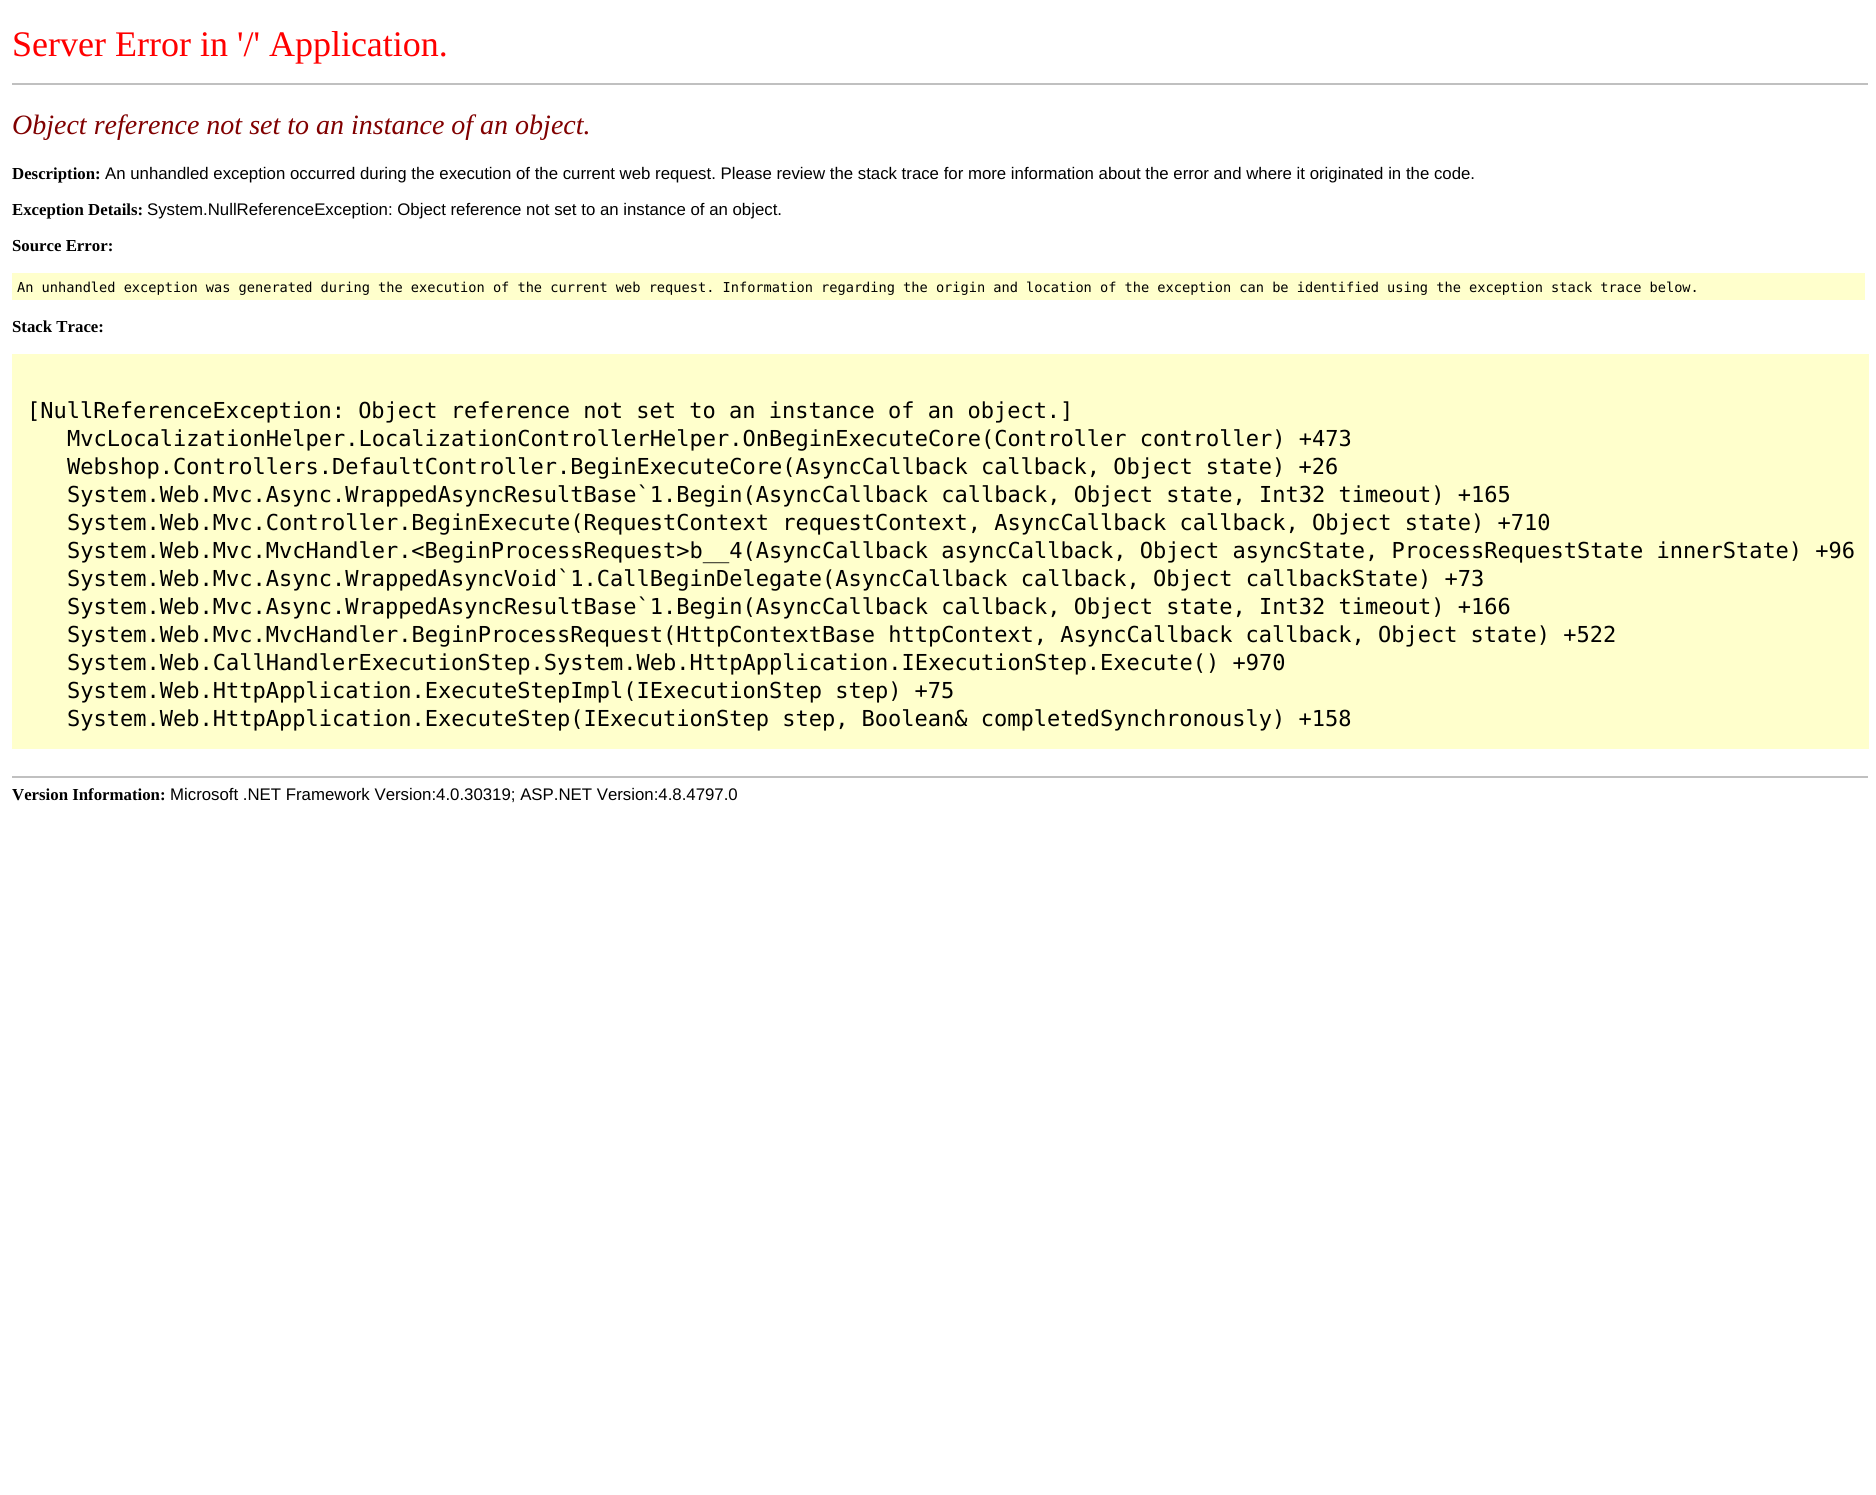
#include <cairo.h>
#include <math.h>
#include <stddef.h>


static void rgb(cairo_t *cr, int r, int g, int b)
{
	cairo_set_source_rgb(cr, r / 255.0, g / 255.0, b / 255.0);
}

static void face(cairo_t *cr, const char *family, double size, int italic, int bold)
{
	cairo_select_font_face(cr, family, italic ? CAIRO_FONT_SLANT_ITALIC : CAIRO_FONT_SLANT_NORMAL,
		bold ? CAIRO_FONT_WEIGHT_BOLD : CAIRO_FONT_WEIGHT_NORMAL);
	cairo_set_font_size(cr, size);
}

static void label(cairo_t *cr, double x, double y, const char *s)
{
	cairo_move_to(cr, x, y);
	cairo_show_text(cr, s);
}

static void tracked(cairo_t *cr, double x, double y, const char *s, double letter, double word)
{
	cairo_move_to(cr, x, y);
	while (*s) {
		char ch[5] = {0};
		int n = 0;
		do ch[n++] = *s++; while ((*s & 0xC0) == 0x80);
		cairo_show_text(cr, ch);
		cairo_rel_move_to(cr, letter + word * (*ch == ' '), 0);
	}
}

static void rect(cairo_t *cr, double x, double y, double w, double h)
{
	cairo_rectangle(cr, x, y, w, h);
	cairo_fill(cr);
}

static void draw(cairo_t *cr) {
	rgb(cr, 255, 255, 255);
	cairo_paint(cr);
	face(cr, "Liberation Serif", 36, 0, 0);
	rgb(cr, 255, 0, 0);
	label(cr, 12, 56, "Server Error in '/' Application.");
	rgb(cr, 192, 192, 192);
	rect(cr, 12, 83, 1856, 2);
	face(cr, "Liberation Serif", 28, 1, 0);
	rgb(cr, 128, 0, 0);
	label(cr, 12, 134, "Object reference not set to an instance of an object.");
	face(cr, "Liberation Serif", 16.8, 0, 1);
	rgb(cr, 0, 0, 0);
	label(cr, 12, 179, "Description:");
	face(cr, "Liberation Sans", 16.8, 0, 0);
	label(cr, 105, 179, "An unhandled exception occurred during the execution of the current web request. Please review the stack trace for more information about the error and where it originated in the code.");
	face(cr, "Liberation Serif", 16.8, 0, 1);
	label(cr, 12, 215, "Exception Details:");
	face(cr, "Liberation Sans", 16.8, 0, 0);
	label(cr, 147, 215, "System.NullReferenceException: Object reference not set to an instance of an object.");
	face(cr, "Liberation Serif", 16.8, 0, 1);
	label(cr, 12, 251, "Source Error:");
	rgb(cr, 255, 255, 204);
	rect(cr, 12, 273, 1853, 27);
	face(cr, "DejaVu Sans Mono", 13.65, 0, 0);
	rgb(cr, 0, 0, 0);
	tracked(cr, 17, 292, "An unhandled exception was generated during the execution of the current web request. Information regarding the origin and location of the exception can be identified using the exception stack trace below.", 0, -0.1);
	face(cr, "Liberation Serif", 16.8, 0, 1);
	label(cr, 12, 332, "Stack Trace:");
	rgb(cr, 255, 255, 204);
	rect(cr, 12, 354, 1857, 395);
	face(cr, "DejaVu Sans Mono", 22, 0, 0);
	rgb(cr, 0, 0, 0);
	label(cr, 27, 418, "[NullReferenceException: Object reference not set to an instance of an object.]");
	label(cr, 67, 446, "MvcLocalizationHelper.LocalizationControllerHelper.OnBeginExecuteCore(Controller controller) +473");
	tracked(cr, 67, 474, "Webshop.Controllers.DefaultController.BeginExecuteCore(AsyncCallback callback, Object state) +26", 0, -0.1);
	label(cr, 67, 502, "System.Web.Mvc.Async.WrappedAsyncResultBase`1.Begin(AsyncCallback callback, Object state, Int32 timeout) +165");
	label(cr, 67, 530, "System.Web.Mvc.Controller.BeginExecute(RequestContext requestContext, AsyncCallback callback, Object state) +710");
	label(cr, 67, 558, "System.Web.Mvc.MvcHandler.<BeginProcessRequest>b__4(AsyncCallback asyncCallback, Object asyncState, ProcessRequestState innerState) +96");
	label(cr, 67, 586, "System.Web.Mvc.Async.WrappedAsyncVoid`1.CallBeginDelegate(AsyncCallback callback, Object callbackState) +73");
	label(cr, 67, 614, "System.Web.Mvc.Async.WrappedAsyncResultBase`1.Begin(AsyncCallback callback, Object state, Int32 timeout) +166");
	tracked(cr, 67, 642, "System.Web.Mvc.MvcHandler.BeginProcessRequest(HttpContextBase httpContext, AsyncCallback callback, Object state) +522", 0, -0.1);
	label(cr, 67, 670, "System.Web.CallHandlerExecutionStep.System.Web.HttpApplication.IExecutionStep.Execute() +970");
	tracked(cr, 67, 698, "System.Web.HttpApplication.ExecuteStepImpl(IExecutionStep step) +75", 0, -0.1);
	tracked(cr, 67, 726, "System.Web.HttpApplication.ExecuteStep(IExecutionStep step, Boolean& completedSynchronously) +158", 0, -0.1);
	rgb(cr, 192, 192, 192);
	rect(cr, 12, 776, 1856, 2);
	face(cr, "Liberation Serif", 16.8, 0, 1);
	rgb(cr, 0, 0, 0);
	label(cr, 12, 800, "Version Information:");
	face(cr, "Liberation Sans", 16.8, 0, 0);
	label(cr, 170, 800, "Microsoft .NET Framework Version:4.0.30319; ASP.NET Version:4.8.4797.0");
}

int main(void) {
	cairo_surface_t *surface = cairo_image_surface_create(CAIRO_FORMAT_RGB24, 1876, 1495);
	cairo_t *cr = cairo_create(surface);
	cairo_font_options_t *options = cairo_font_options_create();
	cairo_font_options_set_hint_metrics(options, CAIRO_HINT_METRICS_OFF);
	cairo_font_options_set_hint_style(options, CAIRO_HINT_STYLE_NONE);
	cairo_set_font_options(cr, options);
	cairo_set_miter_limit(cr, 4);
	draw(cr);
	cairo_surface_write_to_png(surface, "render.png");
	cairo_font_options_destroy(options);
	cairo_destroy(cr);
	cairo_surface_destroy(surface);
	return 0;
}
